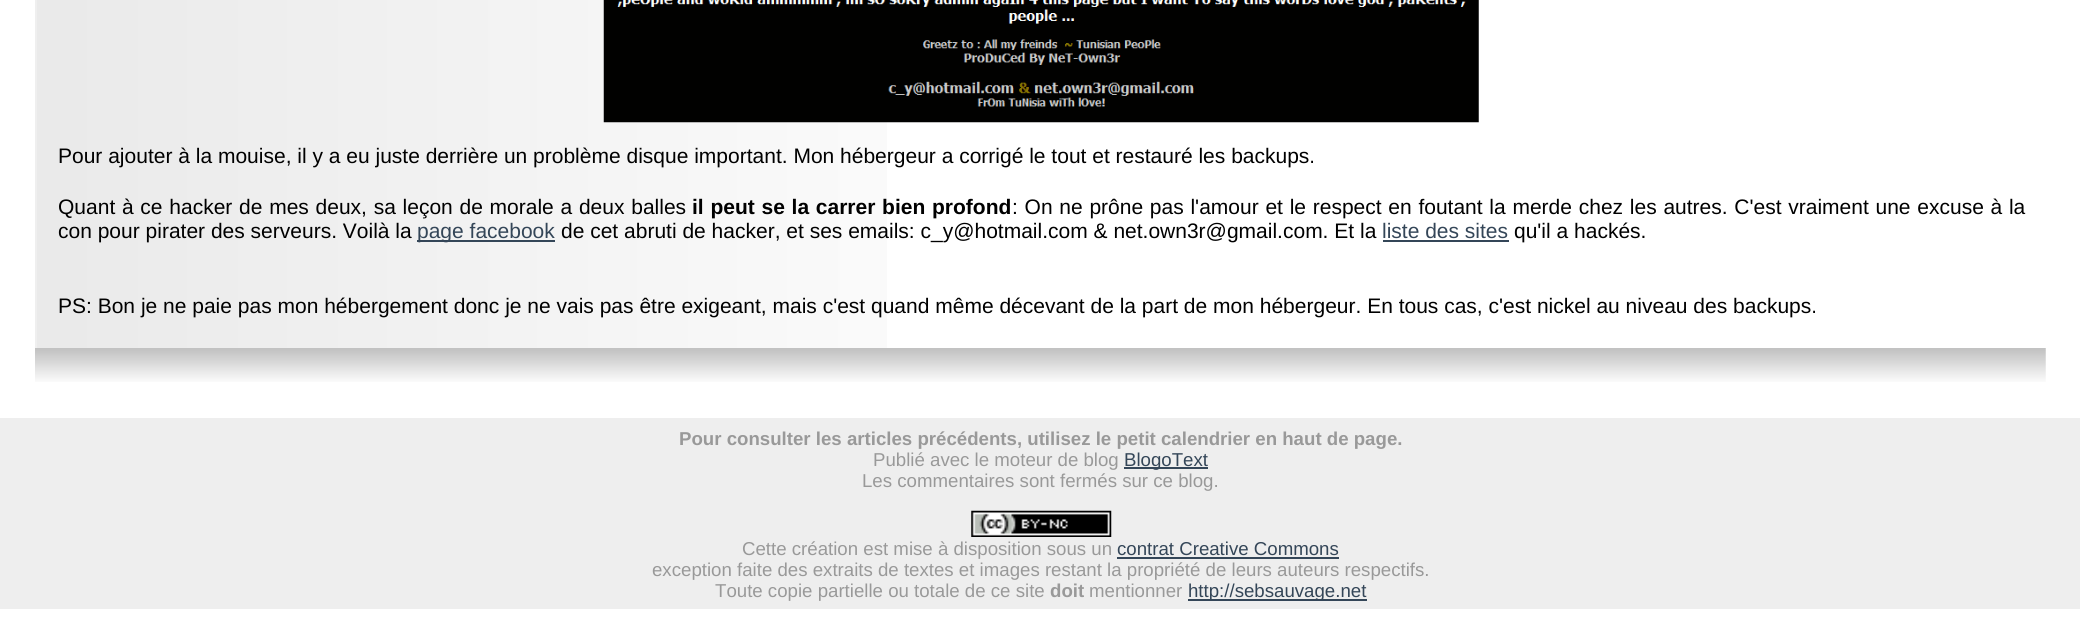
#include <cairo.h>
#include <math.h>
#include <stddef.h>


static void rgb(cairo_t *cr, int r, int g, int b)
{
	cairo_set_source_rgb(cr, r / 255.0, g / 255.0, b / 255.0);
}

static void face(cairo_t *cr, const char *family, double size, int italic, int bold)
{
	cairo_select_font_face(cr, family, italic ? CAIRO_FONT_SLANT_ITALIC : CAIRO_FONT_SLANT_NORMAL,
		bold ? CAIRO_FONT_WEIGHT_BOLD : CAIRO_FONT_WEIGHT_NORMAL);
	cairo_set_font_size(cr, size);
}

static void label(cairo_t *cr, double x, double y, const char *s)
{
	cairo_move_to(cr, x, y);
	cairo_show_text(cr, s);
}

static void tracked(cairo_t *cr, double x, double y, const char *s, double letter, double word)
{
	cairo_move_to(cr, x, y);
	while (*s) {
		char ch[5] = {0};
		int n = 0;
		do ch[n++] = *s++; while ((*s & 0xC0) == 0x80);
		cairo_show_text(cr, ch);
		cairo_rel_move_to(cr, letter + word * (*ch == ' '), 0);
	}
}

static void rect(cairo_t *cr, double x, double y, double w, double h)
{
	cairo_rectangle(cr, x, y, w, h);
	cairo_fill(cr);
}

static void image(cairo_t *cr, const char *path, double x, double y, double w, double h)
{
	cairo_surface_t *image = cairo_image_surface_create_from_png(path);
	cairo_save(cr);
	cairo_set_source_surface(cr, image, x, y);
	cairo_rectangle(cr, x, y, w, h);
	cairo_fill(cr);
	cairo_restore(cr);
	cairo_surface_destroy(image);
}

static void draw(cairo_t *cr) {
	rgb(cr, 255, 255, 255);
	cairo_paint(cr);
	image(cr, "image0.png", 37, 0, 850, 348);
	rgb(cr, 239, 239, 239);
	rect(cr, 35, 0, 2, 348);
	image(cr, "image1.png", 603, 0, 876, 123);
	face(cr, "Liberation Sans", 21, 0, 0);
	rgb(cr, 0, 0, 0);
	label(cr, 58, 163, "Pour ajouter à la mouise, il y a eu juste derrière un problème disque important. Mon hébergeur a corrigé le tout et restauré les backups.");
	tracked(cr, 58, 214, "Quant à ce hacker de mes deux, sa leçon de morale a deux balles", 0, 0.9);
	face(cr, "Liberation Sans", 21, 0, 1);
	tracked(cr, 692, 214, "il peut se la carrer bien profond", 0, 0.9);
	face(cr, "Liberation Sans", 21, 0, 0);
	tracked(cr, 1012, 214, ": On ne prône pas l'amour et le respect en foutant la merde chez les autres. C'est vraiment une excuse à la", 0, 0.9);
	label(cr, 58, 238, "con pour pirater des serveurs. Voilà la");
	rgb(cr, 52, 70, 88);
	rect(cr, 417, 240, 138, 2);
	label(cr, 417, 238, "page facebook");
	rgb(cr, 0, 0, 0);
	label(cr, 561, 238, "de cet abruti de hacker, et ses emails: c_y@hotmail.com & net.own3r@gmail.com. Et la");
	rgb(cr, 52, 70, 88);
	label(cr, 1382, 238, "liste des sites");
	rect(cr, 1383, 240, 126, 2);
	rgb(cr, 0, 0, 0);
	label(cr, 1514, 238, "qu'il a hackés.");
	label(cr, 58, 313, "PS: Bon je ne paie pas mon hébergement donc je ne vais pas être exigeant, mais c'est quand même décevant de la part de mon hébergeur. En tous cas, c'est nickel au niveau des backups.");
	image(cr, "image2.png", 35, 348, 2011, 34);
	rgb(cr, 238, 238, 238);
	rect(cr, 0, 418, 2080, 191);
	face(cr, "Liberation Sans", 18.65, 0, 1);
	rgb(cr, 153, 153, 153);
	label(cr, 679, 445, "Pour consulter les articles précédents, utilisez le petit calendrier en haut de page.");
	face(cr, "Liberation Sans", 18.65, 0, 0);
	label(cr, 873, 466, "Publié avec le moteur de blog");
	rgb(cr, 52, 70, 88);
	rect(cr, 1124, 467, 84, 2);
	label(cr, 1124, 466, "BlogoText");
	rgb(cr, 153, 153, 153);
	label(cr, 862, 487, "Les commentaires sont fermés sur ce blog.");
	image(cr, "image3.png", 971, 510, 141, 27);
	label(cr, 742, 555, "Cette création est mise à disposition sous un");
	rgb(cr, 52, 70, 88);
	label(cr, 1117, 555, "contrat Creative Commons");
	rect(cr, 1117, 557, 222, 2);
	rgb(cr, 153, 153, 153);
	label(cr, 652, 576, "exception faite des extraits de textes et images restant la propriété de leurs auteurs respectifs.");
	label(cr, 715, 597, "Toute copie partielle ou totale de ce site");
	face(cr, "Liberation Sans", 18.65, 0, 1);
	label(cr, 1050, 597, "doit");
	face(cr, "Liberation Sans", 18.65, 0, 0);
	label(cr, 1089, 597, "mentionner");
	rgb(cr, 52, 70, 88);
	rect(cr, 1188, 599, 179, 2);
	label(cr, 1188, 597, "http://sebsauvage.net");
}

int main(void) {
	cairo_surface_t *surface = cairo_image_surface_create(CAIRO_FORMAT_RGB24, 2080, 632);
	cairo_t *cr = cairo_create(surface);
	cairo_font_options_t *options = cairo_font_options_create();
	cairo_font_options_set_hint_metrics(options, CAIRO_HINT_METRICS_OFF);
	cairo_font_options_set_hint_style(options, CAIRO_HINT_STYLE_NONE);
	cairo_set_font_options(cr, options);
	cairo_set_miter_limit(cr, 4);
	draw(cr);
	cairo_surface_write_to_png(surface, "render.png");
	cairo_font_options_destroy(options);
	cairo_destroy(cr);
	cairo_surface_destroy(surface);
	return 0;
}
